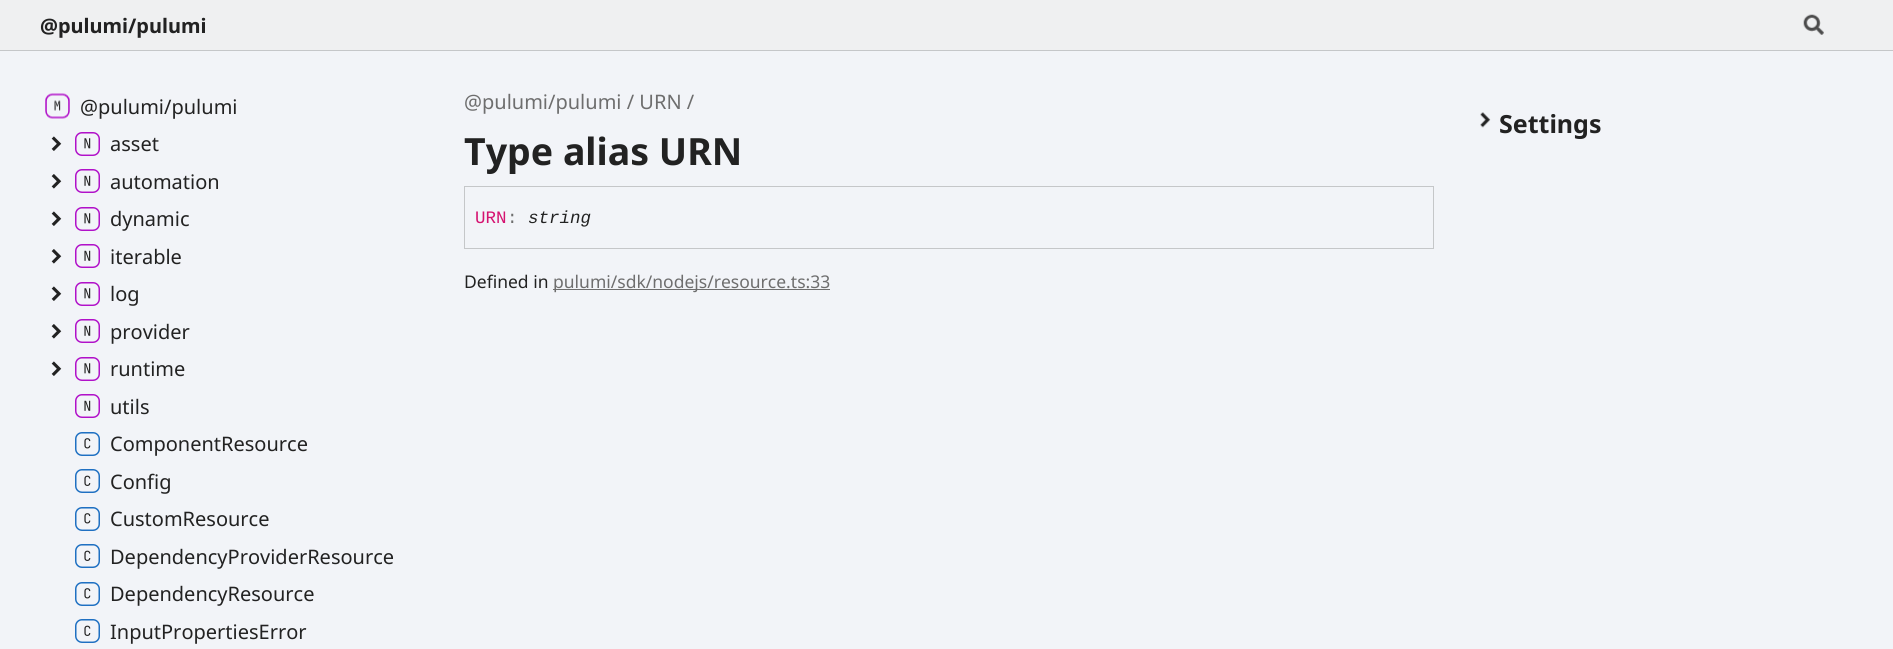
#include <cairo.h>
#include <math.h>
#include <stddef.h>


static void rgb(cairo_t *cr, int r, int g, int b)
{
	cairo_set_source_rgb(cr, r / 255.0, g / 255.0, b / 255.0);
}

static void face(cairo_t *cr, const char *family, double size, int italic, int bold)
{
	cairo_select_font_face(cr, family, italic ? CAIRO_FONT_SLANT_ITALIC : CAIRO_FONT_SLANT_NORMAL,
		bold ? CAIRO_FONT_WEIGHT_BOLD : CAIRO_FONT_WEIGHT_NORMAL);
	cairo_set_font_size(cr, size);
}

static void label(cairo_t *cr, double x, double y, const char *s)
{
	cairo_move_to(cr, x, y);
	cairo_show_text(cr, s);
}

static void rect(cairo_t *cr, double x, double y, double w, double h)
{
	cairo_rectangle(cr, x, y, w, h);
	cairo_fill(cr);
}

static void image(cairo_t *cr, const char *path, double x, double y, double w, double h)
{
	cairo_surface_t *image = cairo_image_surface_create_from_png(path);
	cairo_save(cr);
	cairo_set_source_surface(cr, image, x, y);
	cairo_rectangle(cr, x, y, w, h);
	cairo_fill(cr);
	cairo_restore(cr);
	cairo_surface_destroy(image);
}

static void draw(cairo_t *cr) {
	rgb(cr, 242, 244, 248);
	cairo_paint(cr);
	rgb(cr, 239, 240, 241);
	rect(cr, 0, 0, 1893, 50);
	rgb(cr, 197, 199, 201);
	rect(cr, 0, 50, 1893, 1);
	face(cr, "Noto Sans", 20, 0, 1);
	rgb(cr, 34, 34, 34);
	label(cr, 40, 33, "@pulumi/pulumi");
	image(cr, "image0.png", 1803, 14, 21, 21);
	face(cr, "Noto Sans", 20, 0, 0);
	rgb(cr, 110, 110, 110);
	label(cr, 464, 109, "@pulumi/pulumi / URN /");
	face(cr, "Noto Sans", 37.5, 0, 1);
	rgb(cr, 34, 34, 34);
	label(cr, 464, 165, "Type alias URN");
	cairo_rectangle(cr, 464.5, 186.5, 969, 62);
	rgb(cr, 197, 199, 201);
	cairo_set_line_width(cr, 1);
	cairo_stroke(cr);
	face(cr, "Liberation Mono", 17.5, 0, 0);
	rgb(cr, 213, 18, 112);
	label(cr, 475, 223, "URN");
	rgb(cr, 110, 110, 110);
	label(cr, 507, 223, ":");
	face(cr, "Liberation Mono", 17.5, 1, 0);
	rgb(cr, 34, 34, 34);
	label(cr, 528, 223, "string");
	face(cr, "Noto Sans", 17.5, 0, 0);
	label(cr, 464, 288, "Defined in");
	rgb(cr, 110, 110, 110);
	rect(cr, 553, 289, 277, 1);
	label(cr, 553, 288, "pulumi/sdk/nodejs/resource.ts:33");
	image(cr, "image1.png", 45, 93, 25, 26);
	face(cr, "Noto Sans", 20, 0, 0);
	rgb(cr, 34, 34, 34);
	label(cr, 80, 114, "@pulumi/pulumi");
	image(cr, "image2.png", 51, 136, 11, 15);
	image(cr, "image3.png", 75, 132, 25, 24);
	label(cr, 110, 151, "asset");
	image(cr, "image4.png", 51, 174, 11, 15);
	image(cr, "image5.png", 75, 169, 25, 24);
	label(cr, 110, 189, "automation");
	image(cr, "image2.png", 51, 211, 11, 15);
	image(cr, "image3.png", 75, 207, 25, 24);
	label(cr, 110, 226, "dynamic");
	image(cr, "image4.png", 51, 249, 11, 15);
	image(cr, "image5.png", 75, 244, 25, 24);
	label(cr, 110, 264, "iterable");
	image(cr, "image2.png", 51, 286, 11, 15);
	image(cr, "image3.png", 75, 282, 25, 24);
	label(cr, 110, 301, "log");
	image(cr, "image4.png", 51, 324, 11, 15);
	image(cr, "image5.png", 75, 319, 25, 24);
	label(cr, 110, 339, "provider");
	image(cr, "image2.png", 51, 361, 11, 15);
	image(cr, "image3.png", 75, 357, 25, 24);
	label(cr, 110, 376, "runtime");
	image(cr, "image5.png", 75, 394, 25, 24);
	label(cr, 110, 414, "utils");
	image(cr, "image6.png", 75, 432, 25, 24);
	label(cr, 110, 451, "ComponentResource");
	image(cr, "image7.png", 75, 469, 25, 24);
	label(cr, 110, 489, "Config");
	image(cr, "image6.png", 75, 507, 25, 24);
	label(cr, 110, 526, "CustomResource");
	image(cr, "image7.png", 75, 544, 25, 24);
	label(cr, 110, 564, "DependencyProviderResource");
	image(cr, "image6.png", 75, 582, 25, 24);
	label(cr, 110, 601, "DependencyResource");
	image(cr, "image7.png", 75, 619, 25, 24);
	label(cr, 110, 639, "InputPropertiesError");
	image(cr, "image8.png", 1480, 112, 11, 16);
	face(cr, "Noto Sans", 25, 0, 1);
	label(cr, 1499, 133, "Settings");
}

int main(void) {
	cairo_surface_t *surface = cairo_image_surface_create(CAIRO_FORMAT_RGB24, 1893, 649);
	cairo_t *cr = cairo_create(surface);
	cairo_font_options_t *options = cairo_font_options_create();
	cairo_font_options_set_hint_metrics(options, CAIRO_HINT_METRICS_OFF);
	cairo_font_options_set_hint_style(options, CAIRO_HINT_STYLE_NONE);
	cairo_set_font_options(cr, options);
	cairo_set_miter_limit(cr, 4);
	draw(cr);
	cairo_surface_write_to_png(surface, "render.png");
	cairo_font_options_destroy(options);
	cairo_destroy(cr);
	cairo_surface_destroy(surface);
	return 0;
}
